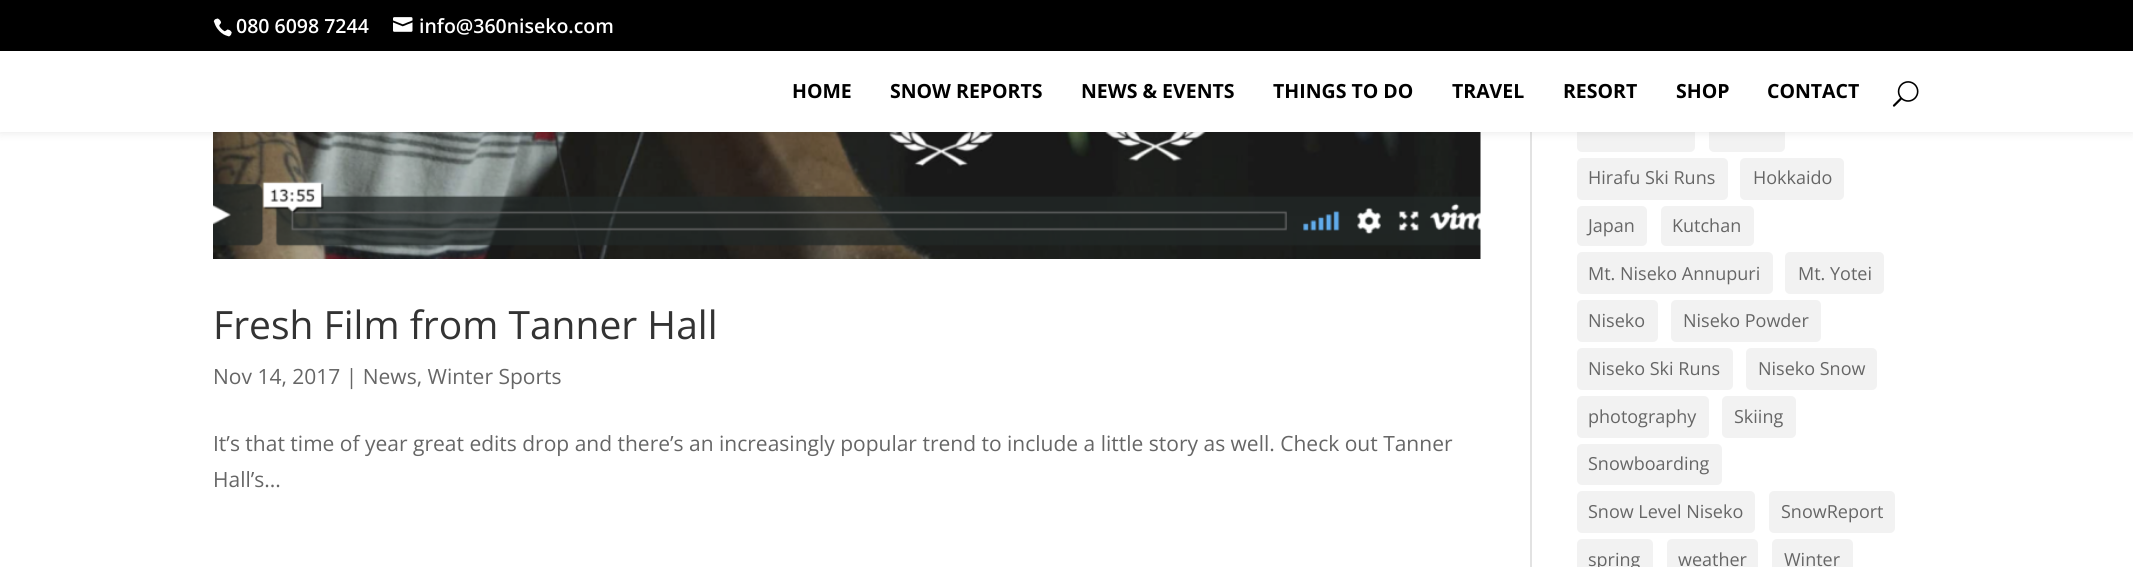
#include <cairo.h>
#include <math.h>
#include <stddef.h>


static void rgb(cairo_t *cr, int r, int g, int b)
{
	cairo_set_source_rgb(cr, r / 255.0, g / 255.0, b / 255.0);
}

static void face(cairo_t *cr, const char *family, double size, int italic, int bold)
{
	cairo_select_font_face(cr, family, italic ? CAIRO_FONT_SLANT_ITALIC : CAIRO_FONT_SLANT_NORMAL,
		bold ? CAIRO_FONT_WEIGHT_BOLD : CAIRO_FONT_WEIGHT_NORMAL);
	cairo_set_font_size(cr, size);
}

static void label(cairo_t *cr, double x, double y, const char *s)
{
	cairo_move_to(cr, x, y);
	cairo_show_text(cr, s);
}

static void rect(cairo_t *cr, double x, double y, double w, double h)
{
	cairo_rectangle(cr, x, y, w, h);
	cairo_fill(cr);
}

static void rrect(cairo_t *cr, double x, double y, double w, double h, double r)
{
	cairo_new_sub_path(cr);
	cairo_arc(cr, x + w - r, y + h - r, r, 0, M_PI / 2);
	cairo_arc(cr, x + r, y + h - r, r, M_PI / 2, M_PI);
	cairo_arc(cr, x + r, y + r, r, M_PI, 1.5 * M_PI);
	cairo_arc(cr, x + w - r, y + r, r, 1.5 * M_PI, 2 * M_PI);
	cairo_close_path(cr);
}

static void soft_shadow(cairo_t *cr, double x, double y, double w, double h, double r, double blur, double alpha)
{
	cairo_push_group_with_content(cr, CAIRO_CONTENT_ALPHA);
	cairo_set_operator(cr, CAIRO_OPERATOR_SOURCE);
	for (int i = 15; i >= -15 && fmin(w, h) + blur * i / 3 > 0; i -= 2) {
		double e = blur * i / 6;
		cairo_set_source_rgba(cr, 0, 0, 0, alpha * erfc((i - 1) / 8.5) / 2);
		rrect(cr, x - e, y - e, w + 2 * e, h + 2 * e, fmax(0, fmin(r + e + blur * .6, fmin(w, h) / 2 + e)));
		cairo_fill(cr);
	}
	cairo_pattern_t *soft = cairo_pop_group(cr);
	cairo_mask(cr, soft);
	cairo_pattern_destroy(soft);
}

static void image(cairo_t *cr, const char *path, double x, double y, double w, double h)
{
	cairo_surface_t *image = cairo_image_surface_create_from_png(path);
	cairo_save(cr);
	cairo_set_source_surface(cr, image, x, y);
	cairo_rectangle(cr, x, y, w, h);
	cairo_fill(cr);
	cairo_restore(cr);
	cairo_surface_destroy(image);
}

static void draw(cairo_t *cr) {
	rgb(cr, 255, 255, 255);
	cairo_paint(cr);
	rgb(cr, 226, 226, 226);
	rect(cr, 1530, 132, 2, 435);
	image(cr, "image3.png", 213, 132, 1268, 127);
	rgb(cr, 242, 242, 242);
	rrect(cr, 1577, 110, 118, 42, 5);
	cairo_fill(cr);
	rrect(cr, 1709, 110, 76, 42, 5);
	cairo_fill(cr);
	rgb(cr, 0, 0, 0);
	soft_shadow(cr, 0, 51, 2133, 81, 0, 5, 0.1);
	rgb(cr, 0, 0, 0);
	rect(cr, 0, 0, 2133, 51);
	image(cr, "image0.png", 213, 18, 19, 19);
	face(cr, "Open Sans SemiBold", 19.5, 0, 0);
	rgb(cr, 255, 255, 255);
	label(cr, 236, 33, "080 6098 7244");
	image(cr, "image1.png", 393, 17, 20, 15);
	label(cr, 419, 33, "info@360niseko.com");
	rect(cr, 0, 51, 2133, 81);
	face(cr, "Open Sans", 19.5, 0, 1);
	rgb(cr, 0, 0, 0);
	label(cr, 792, 98, "HOME");
	label(cr, 890, 98, "SNOW REPORTS");
	label(cr, 1081, 98, "NEWS & EVENTS");
	label(cr, 1273, 98, "THINGS TO DO");
	label(cr, 1452, 98, "TRAVEL");
	label(cr, 1563, 98, "RESORT");
	label(cr, 1676, 98, "SHOP");
	label(cr, 1767, 98, "CONTACT");
	image(cr, "image2.png", 1892, 81, 27, 26);
	face(cr, "Open Sans", 39, 0, 0);
	rgb(cr, 51, 51, 51);
	label(cr, 213, 339, "Fresh Film from Tanner Hall");
	face(cr, "Open Sans", 21, 0, 0);
	rgb(cr, 102, 102, 102);
	label(cr, 213, 384, "Nov 14, 2017 | News, Winter Sports");
	label(cr, 213, 451, "It’s that time of year great edits drop and there’s an increasingly popular trend to include a little story as well. Check out Tanner");
	label(cr, 213, 487, "Hall’s...");
	rgb(cr, 242, 242, 242);
	rrect(cr, 1577, 158, 151, 42, 5);
	cairo_fill(cr);
	face(cr, "Open Sans", 18, 0, 0);
	rgb(cr, 102, 102, 102);
	label(cr, 1588, 184, "Hirafu Ski Runs");
	rgb(cr, 242, 242, 242);
	rrect(cr, 1740, 158, 104, 42, 5);
	cairo_fill(cr);
	rgb(cr, 102, 102, 102);
	label(cr, 1753, 184, "Hokkaido");
	rgb(cr, 242, 242, 242);
	rrect(cr, 1577, 206, 70, 40, 5);
	cairo_fill(cr);
	rgb(cr, 102, 102, 102);
	label(cr, 1588, 232, "Japan");
	rgb(cr, 242, 242, 242);
	rrect(cr, 1661, 206, 93, 40, 5);
	cairo_fill(cr);
	rgb(cr, 102, 102, 102);
	label(cr, 1672, 232, "Kutchan");
	rgb(cr, 242, 242, 242);
	rrect(cr, 1577, 252, 196, 42, 5);
	cairo_fill(cr);
	rgb(cr, 102, 102, 102);
	label(cr, 1588, 280, "Mt. Niseko Annupuri");
	rgb(cr, 242, 242, 242);
	rrect(cr, 1785, 252, 99, 42, 5);
	cairo_fill(cr);
	rgb(cr, 102, 102, 102);
	label(cr, 1798, 280, "Mt. Yotei");
	rgb(cr, 242, 242, 242);
	rrect(cr, 1577, 300, 81, 42, 5);
	cairo_fill(cr);
	rgb(cr, 102, 102, 102);
	label(cr, 1588, 327, "Niseko");
	rgb(cr, 242, 242, 242);
	rrect(cr, 1671, 300, 150, 42, 5);
	cairo_fill(cr);
	rgb(cr, 102, 102, 102);
	label(cr, 1683, 327, "Niseko Powder");
	rgb(cr, 242, 242, 242);
	rrect(cr, 1577, 348, 156, 42, 5);
	cairo_fill(cr);
	rgb(cr, 102, 102, 102);
	label(cr, 1588, 375, "Niseko Ski Runs");
	rgb(cr, 242, 242, 242);
	rrect(cr, 1746, 348, 131, 42, 5);
	cairo_fill(cr);
	rgb(cr, 102, 102, 102);
	label(cr, 1758, 375, "Niseko Snow");
	rgb(cr, 242, 242, 242);
	rrect(cr, 1577, 396, 132, 42, 5);
	cairo_fill(cr);
	rgb(cr, 102, 102, 102);
	label(cr, 1588, 423, "photography");
	rgb(cr, 242, 242, 242);
	rrect(cr, 1722, 396, 74, 42, 5);
	cairo_fill(cr);
	rgb(cr, 102, 102, 102);
	label(cr, 1734, 423, "Skiing");
	rgb(cr, 242, 242, 242);
	rrect(cr, 1577, 444, 145, 41, 5);
	cairo_fill(cr);
	rgb(cr, 102, 102, 102);
	label(cr, 1588, 470, "Snowboarding");
	rgb(cr, 242, 242, 242);
	rrect(cr, 1577, 491, 178, 42, 5);
	cairo_fill(cr);
	rgb(cr, 102, 102, 102);
	label(cr, 1588, 518, "Snow Level Niseko");
	rgb(cr, 242, 242, 242);
	rrect(cr, 1769, 491, 126, 42, 5);
	cairo_fill(cr);
	rgb(cr, 102, 102, 102);
	label(cr, 1781, 518, "SnowReport");
	rgb(cr, 242, 242, 242);
	rrect(cr, 1577, 539, 76, 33, 5);
	cairo_fill(cr);
	rgb(cr, 102, 102, 102);
	label(cr, 1588, 566, "spring");
	rgb(cr, 242, 242, 242);
	rrect(cr, 1667, 539, 91, 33, 5);
	cairo_fill(cr);
	rgb(cr, 102, 102, 102);
	label(cr, 1678, 566, "weather");
	rgb(cr, 242, 242, 242);
	rrect(cr, 1772, 539, 81, 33, 5);
	cairo_fill(cr);
	rgb(cr, 102, 102, 102);
	label(cr, 1784, 566, "Winter");
}

int main(void) {
	cairo_surface_t *surface = cairo_image_surface_create(CAIRO_FORMAT_RGB24, 2133, 567);
	cairo_t *cr = cairo_create(surface);
	cairo_font_options_t *options = cairo_font_options_create();
	cairo_font_options_set_hint_metrics(options, CAIRO_HINT_METRICS_OFF);
	cairo_font_options_set_hint_style(options, CAIRO_HINT_STYLE_NONE);
	cairo_set_font_options(cr, options);
	cairo_set_miter_limit(cr, 4);
	draw(cr);
	cairo_surface_write_to_png(surface, "render.png");
	cairo_font_options_destroy(options);
	cairo_destroy(cr);
	cairo_surface_destroy(surface);
	return 0;
}
